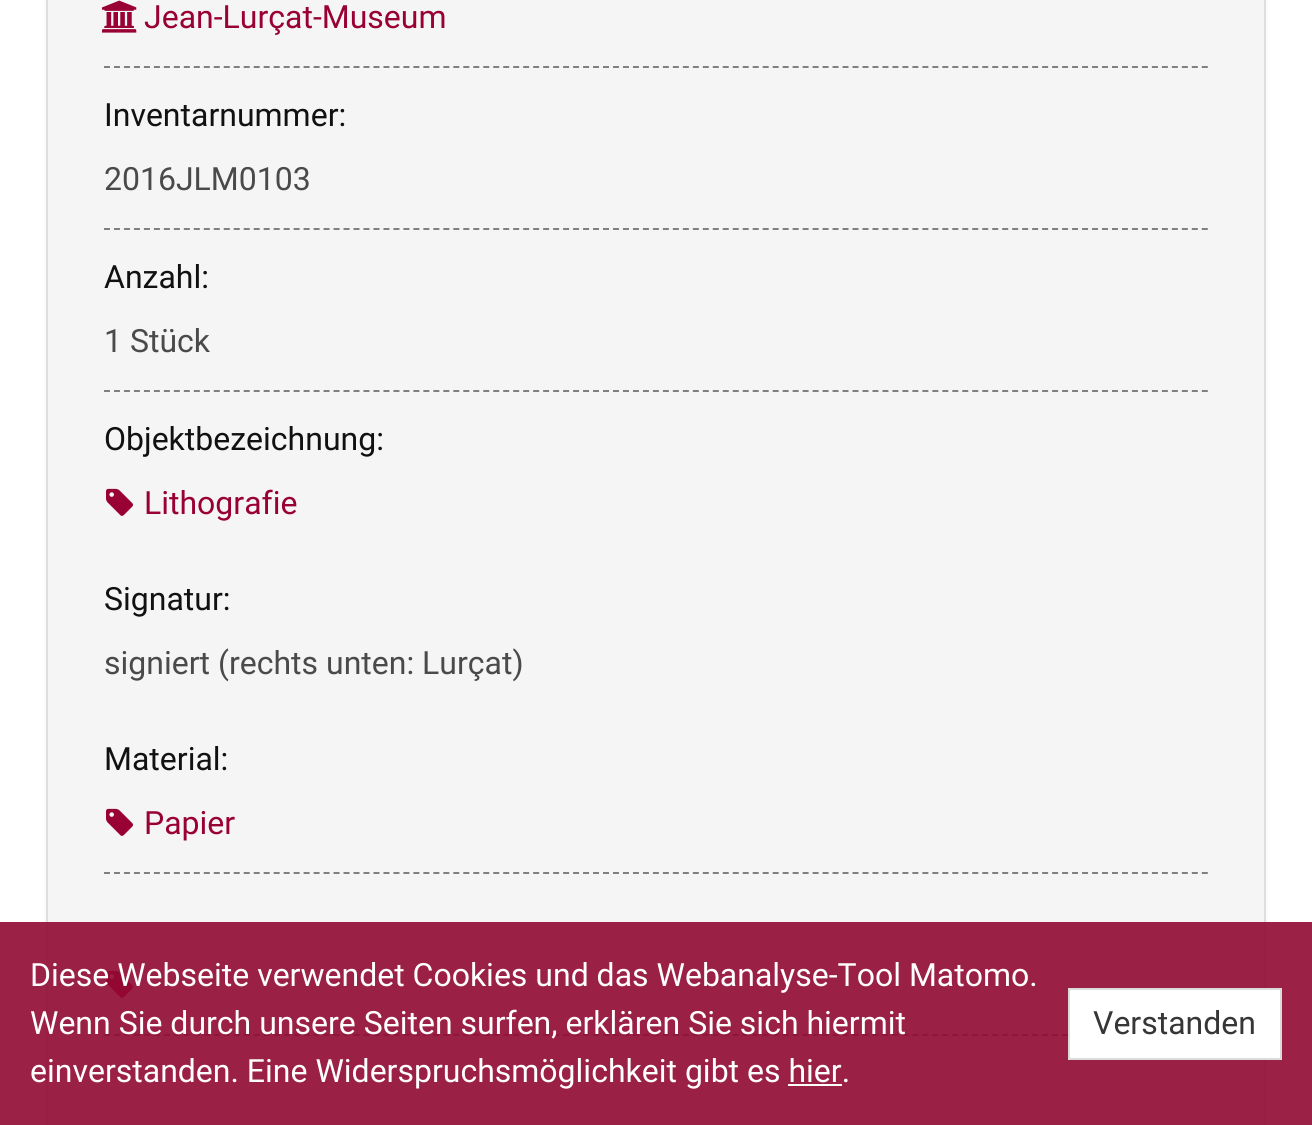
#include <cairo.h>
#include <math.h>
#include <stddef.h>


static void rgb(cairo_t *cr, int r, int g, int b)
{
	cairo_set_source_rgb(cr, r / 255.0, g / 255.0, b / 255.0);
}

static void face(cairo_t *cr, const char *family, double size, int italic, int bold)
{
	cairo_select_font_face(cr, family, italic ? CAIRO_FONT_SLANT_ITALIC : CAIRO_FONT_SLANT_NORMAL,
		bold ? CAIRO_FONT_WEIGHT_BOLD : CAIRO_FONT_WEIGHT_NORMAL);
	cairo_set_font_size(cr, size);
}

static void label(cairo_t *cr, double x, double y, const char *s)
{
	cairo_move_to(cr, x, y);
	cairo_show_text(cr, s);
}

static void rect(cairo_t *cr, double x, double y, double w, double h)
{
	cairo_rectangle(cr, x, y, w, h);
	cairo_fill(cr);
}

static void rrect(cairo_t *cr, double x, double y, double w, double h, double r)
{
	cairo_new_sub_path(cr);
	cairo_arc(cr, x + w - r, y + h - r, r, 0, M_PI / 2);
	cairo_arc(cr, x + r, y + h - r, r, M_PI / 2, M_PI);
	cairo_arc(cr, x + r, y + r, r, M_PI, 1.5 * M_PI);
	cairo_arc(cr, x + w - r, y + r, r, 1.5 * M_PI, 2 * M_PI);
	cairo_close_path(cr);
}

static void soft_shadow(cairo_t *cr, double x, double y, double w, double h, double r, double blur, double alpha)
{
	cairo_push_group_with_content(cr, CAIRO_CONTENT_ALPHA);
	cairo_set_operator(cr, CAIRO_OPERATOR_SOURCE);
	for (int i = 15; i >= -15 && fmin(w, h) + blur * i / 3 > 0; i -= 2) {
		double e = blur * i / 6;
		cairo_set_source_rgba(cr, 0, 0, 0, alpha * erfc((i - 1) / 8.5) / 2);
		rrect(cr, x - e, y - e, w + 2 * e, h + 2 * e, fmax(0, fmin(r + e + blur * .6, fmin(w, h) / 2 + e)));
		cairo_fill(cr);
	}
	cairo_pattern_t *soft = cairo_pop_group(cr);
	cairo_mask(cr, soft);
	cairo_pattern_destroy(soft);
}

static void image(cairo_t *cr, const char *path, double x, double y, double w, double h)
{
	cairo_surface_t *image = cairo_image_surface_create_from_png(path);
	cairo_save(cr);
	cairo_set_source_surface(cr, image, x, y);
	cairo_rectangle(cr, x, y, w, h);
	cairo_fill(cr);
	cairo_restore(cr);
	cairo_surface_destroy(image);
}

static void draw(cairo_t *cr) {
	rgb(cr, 255, 255, 255);
	cairo_paint(cr);
	cairo_rectangle(cr, 47, -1, 1218, 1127);
	rgb(cr, 231, 231, 231);
	cairo_stroke(cr);
	rgb(cr, 10, 10, 10);
	soft_shadow(cr, 48, -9, 1216, 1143, 0, 3, 0.1);
	rgb(cr, 245, 245, 245);
	rect(cr, 48, 0, 1216, 1125);
	cairo_new_path(cr);
	cairo_move_to(cr, 104, 67);
	cairo_line_to(cr, 1208, 67);
	rgb(cr, 128, 128, 128);
	cairo_set_dash(cr, (double[]){6, 3.98}, 2, 0);
	cairo_stroke(cr);
	image(cr, "image0.png", 102, 0, 35, 33);
	face(cr, "Roboto", 32, 0, 0);
	rgb(cr, 153, 0, 51);
	label(cr, 144, 28, "Jean-Lurçat-Museum");
	cairo_new_path(cr);
	cairo_move_to(cr, 104, 229);
	cairo_line_to(cr, 1208, 229);
	rgb(cr, 128, 128, 128);
	cairo_stroke(cr);
	rgb(cr, 17, 17, 17);
	label(cr, 104, 126, "Inventarnummer:");
	rgb(cr, 74, 74, 74);
	label(cr, 104, 190, "2016JLM0103");
	cairo_new_path(cr);
	cairo_move_to(cr, 104, 391);
	cairo_line_to(cr, 1208, 391);
	rgb(cr, 128, 128, 128);
	cairo_stroke(cr);
	rgb(cr, 17, 17, 17);
	label(cr, 104, 288, "Anzahl:");
	rgb(cr, 74, 74, 74);
	label(cr, 104, 352, "1 Stück");
	rgb(cr, 17, 17, 17);
	label(cr, 104, 450, "Objektbezeichnung:");
	image(cr, "image1.png", 106, 488, 27, 28);
	rgb(cr, 153, 0, 51);
	label(cr, 144, 514, "Lithografie");
	rgb(cr, 17, 17, 17);
	label(cr, 104, 610, "Signatur:");
	rgb(cr, 74, 74, 74);
	label(cr, 104, 674, "signiert (rechts unten: Lurçat)");
	cairo_new_path(cr);
	cairo_move_to(cr, 104, 873);
	cairo_line_to(cr, 1208, 873);
	rgb(cr, 128, 128, 128);
	cairo_stroke(cr);
	rgb(cr, 17, 17, 17);
	label(cr, 104, 770, "Material:");
	image(cr, "image1.png", 106, 808, 27, 28);
	rgb(cr, 153, 0, 51);
	label(cr, 144, 834, "Papier");
	cairo_new_path(cr);
	cairo_move_to(cr, 104, 1035);
	cairo_line_to(cr, 1208, 1035);
	rgb(cr, 128, 128, 128);
	cairo_stroke(cr);
	image(cr, "image1.png", 106, 970, 27, 28);
	cairo_set_source_rgba(cr, 0.569, 0.039, 0.2, 0.9);
	rect(cr, 0, 922, 1312, 203);
	rgb(cr, 255, 255, 255);
	label(cr, 30, 986, "Diese Webseite verwendet Cookies und das Webanalyse-Tool Matomo.");
	label(cr, 30, 1034, "Wenn Sie durch unsere Seiten surfen, erklären Sie sich hiermit");
	label(cr, 30, 1082, "einverstanden. Eine Widerspruchsmöglichkeit gibt es hier.");
	rect(cr, 788, 1084, 54, 2);
	cairo_rectangle(cr, 1069, 989, 212, 70);
	cairo_fill_preserve(cr);
	rgb(cr, 219, 219, 219);
	cairo_set_dash(cr, NULL, 0, 0);
	cairo_stroke(cr);
	rgb(cr, 54, 54, 54);
	label(cr, 1093, 1034, "Verstanden");
}

int main(void) {
	cairo_surface_t *surface = cairo_image_surface_create(CAIRO_FORMAT_RGB24, 1312, 1125);
	cairo_t *cr = cairo_create(surface);
	cairo_font_options_t *options = cairo_font_options_create();
	cairo_font_options_set_hint_metrics(options, CAIRO_HINT_METRICS_OFF);
	cairo_font_options_set_hint_style(options, CAIRO_HINT_STYLE_NONE);
	cairo_set_font_options(cr, options);
	cairo_set_miter_limit(cr, 4);
	draw(cr);
	cairo_surface_write_to_png(surface, "render.png");
	cairo_font_options_destroy(options);
	cairo_destroy(cr);
	cairo_surface_destroy(surface);
	return 0;
}
